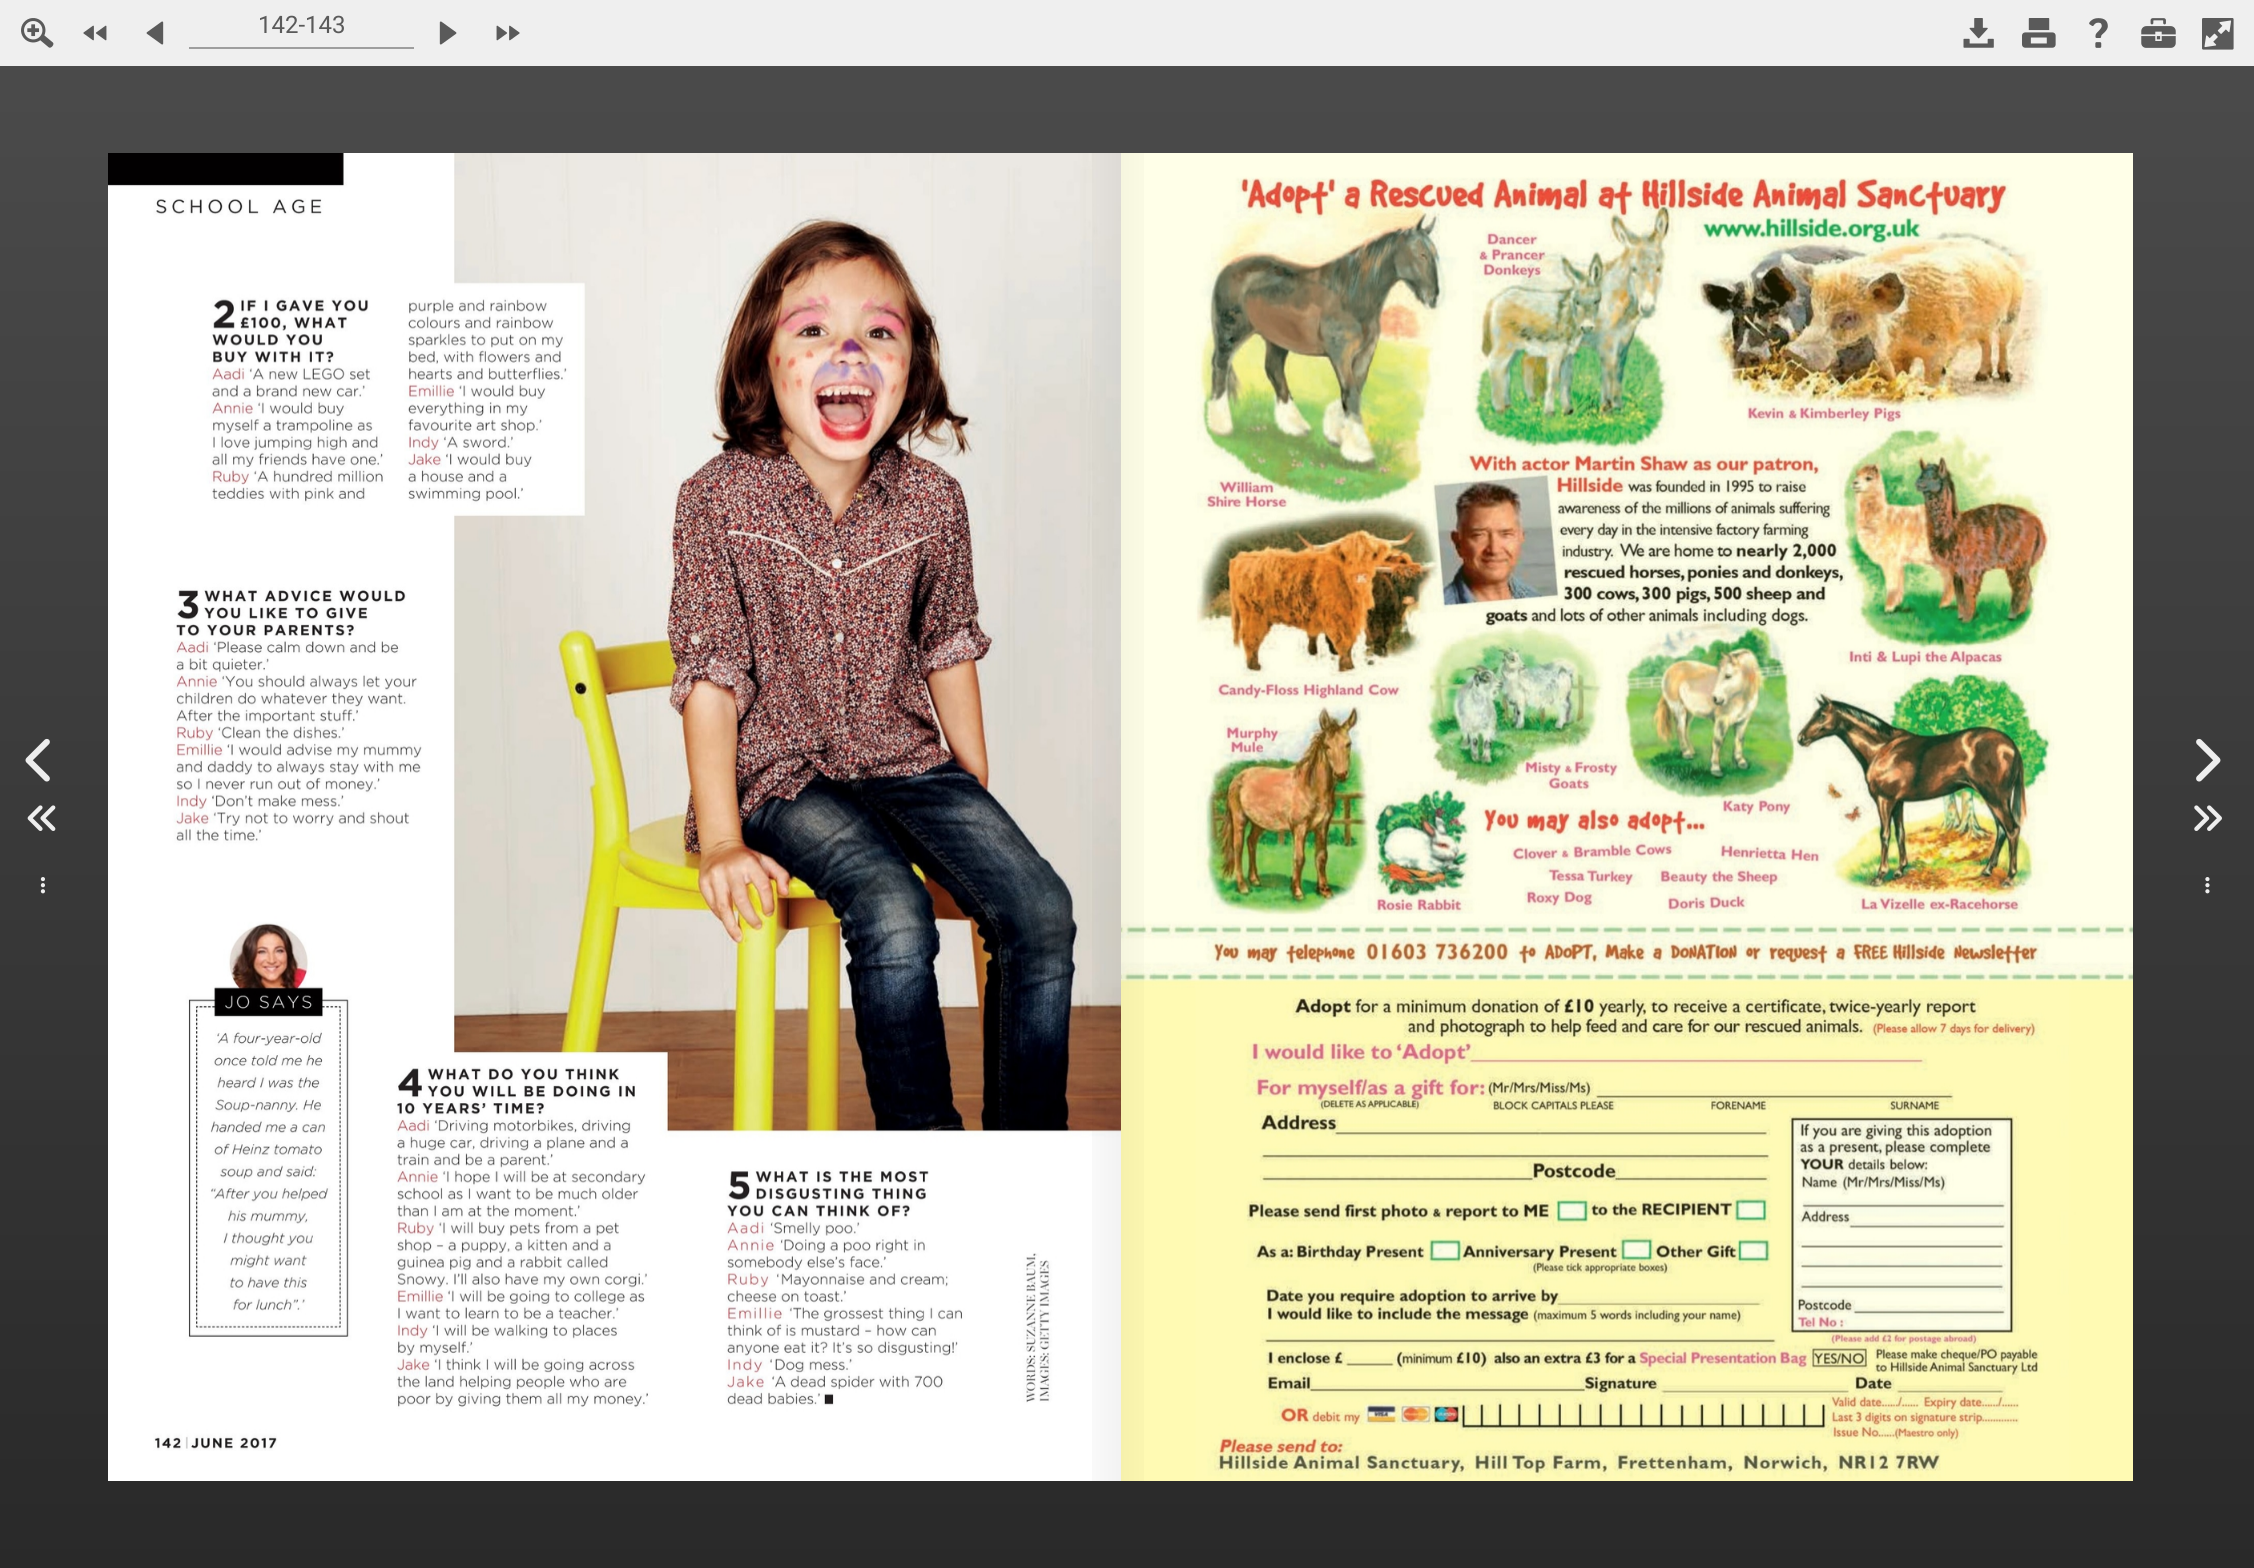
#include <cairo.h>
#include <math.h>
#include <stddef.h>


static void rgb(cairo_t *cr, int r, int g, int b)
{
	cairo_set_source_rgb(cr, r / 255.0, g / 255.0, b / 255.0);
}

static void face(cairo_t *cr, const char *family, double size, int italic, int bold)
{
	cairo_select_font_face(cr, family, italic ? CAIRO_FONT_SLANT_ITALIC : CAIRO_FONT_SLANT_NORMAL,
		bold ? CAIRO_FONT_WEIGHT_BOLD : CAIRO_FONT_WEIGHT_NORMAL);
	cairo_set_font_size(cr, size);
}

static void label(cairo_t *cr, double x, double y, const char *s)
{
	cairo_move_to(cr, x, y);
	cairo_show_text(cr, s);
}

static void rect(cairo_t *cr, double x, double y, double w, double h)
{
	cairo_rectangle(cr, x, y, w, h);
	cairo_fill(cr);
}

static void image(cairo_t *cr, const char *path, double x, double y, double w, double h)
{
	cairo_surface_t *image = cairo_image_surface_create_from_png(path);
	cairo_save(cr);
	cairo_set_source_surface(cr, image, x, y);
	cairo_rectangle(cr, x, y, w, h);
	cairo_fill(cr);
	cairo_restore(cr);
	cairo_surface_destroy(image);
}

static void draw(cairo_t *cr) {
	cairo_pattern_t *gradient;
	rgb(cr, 255, 255, 255);
	cairo_paint(cr);
	gradient = cairo_pattern_create_linear(1127, 0, 1127, 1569);
	cairo_pattern_add_color_stop_rgba(gradient, 0, 0.298, 0.298, 0.298, 1);
	cairo_pattern_add_color_stop_rgba(gradient, 1, 0.161, 0.161, 0.161, 1);
	cairo_set_source(cr, gradient);
	cairo_pattern_destroy(gradient);
	rect(cr, 0, 66, 2254, 1502);
	rgb(cr, 239, 239, 239);
	rect(cr, 0, 0, 2254, 66);
	image(cr, "image0.png", 21, 18, 33, 30);
	image(cr, "image1.png", 83, 25, 24, 16);
	image(cr, "image2.png", 146, 21, 18, 24);
	rgb(cr, 158, 158, 158);
	rect(cr, 189, 47, 225, 2);
	face(cr, "Roboto", 24, 0, 0);
	rgb(cr, 90, 90, 90);
	label(cr, 258, 33, "142-143");
	image(cr, "image3.png", 439, 21, 18, 24);
	image(cr, "image4.png", 496, 25, 24, 16);
	image(cr, "image5.png", 1963, 18, 31, 30);
	image(cr, "image6.png", 2022, 18, 34, 30);
	image(cr, "image7.png", 2089, 18, 19, 30);
	image(cr, "image8.png", 2141, 18, 35, 30);
	image(cr, "image9.png", 2202, 18, 32, 32);
	image(cr, "image10.png", 25, 738, 25, 44);
	image(cr, "image11.png", 27, 805, 29, 26);
	image(cr, "image12.png", 40, 877, 5, 17);
	rgb(cr, 255, 255, 255);
	rect(cr, 108, 1451, 1013, 30);
	image(cr, "image13.png", 108, 153, 1013, 1298);
	gradient = cairo_pattern_create_linear(108, 818, 1121, 818);
	cairo_pattern_add_color_stop_rgba(gradient, 0.95, 0, 0, 0, 0);
	cairo_pattern_add_color_stop_rgba(gradient, 1, 0, 0, 0, 0.05);
	cairo_set_source(cr, gradient);
	cairo_pattern_destroy(gradient);
	rect(cr, 1092, 153, 29, 1328);
	rgb(cr, 255, 255, 232);
	rect(cr, 1121, 153, 1012, 23);
	image(cr, "image14.png", 1121, 176, 1012, 1301);
	image(cr, "image15.png", 1121, 1477, 1012, 4);
	gradient = cairo_pattern_create_linear(2133, 818, 1121, 818);
	cairo_pattern_add_color_stop_rgba(gradient, 0.95, 0.09, 0.09, 0, 0);
	cairo_pattern_add_color_stop_rgba(gradient, 1, 0.09, 0.09, 0, 0.04);
	cairo_set_source(cr, gradient);
	cairo_pattern_destroy(gradient);
	rect(cr, 1121, 153, 23, 1328);
	image(cr, "image16.png", 2196, 738, 25, 44);
	image(cr, "image17.png", 2194, 805, 28, 26);
	image(cr, "image18.png", 2205, 877, 5, 17);
}

int main(void) {
	cairo_surface_t *surface = cairo_image_surface_create(CAIRO_FORMAT_RGB24, 2254, 1568);
	cairo_t *cr = cairo_create(surface);
	cairo_font_options_t *options = cairo_font_options_create();
	cairo_font_options_set_hint_metrics(options, CAIRO_HINT_METRICS_OFF);
	cairo_font_options_set_hint_style(options, CAIRO_HINT_STYLE_NONE);
	cairo_set_font_options(cr, options);
	cairo_set_miter_limit(cr, 4);
	draw(cr);
	cairo_surface_write_to_png(surface, "render.png");
	cairo_font_options_destroy(options);
	cairo_destroy(cr);
	cairo_surface_destroy(surface);
	return 0;
}
